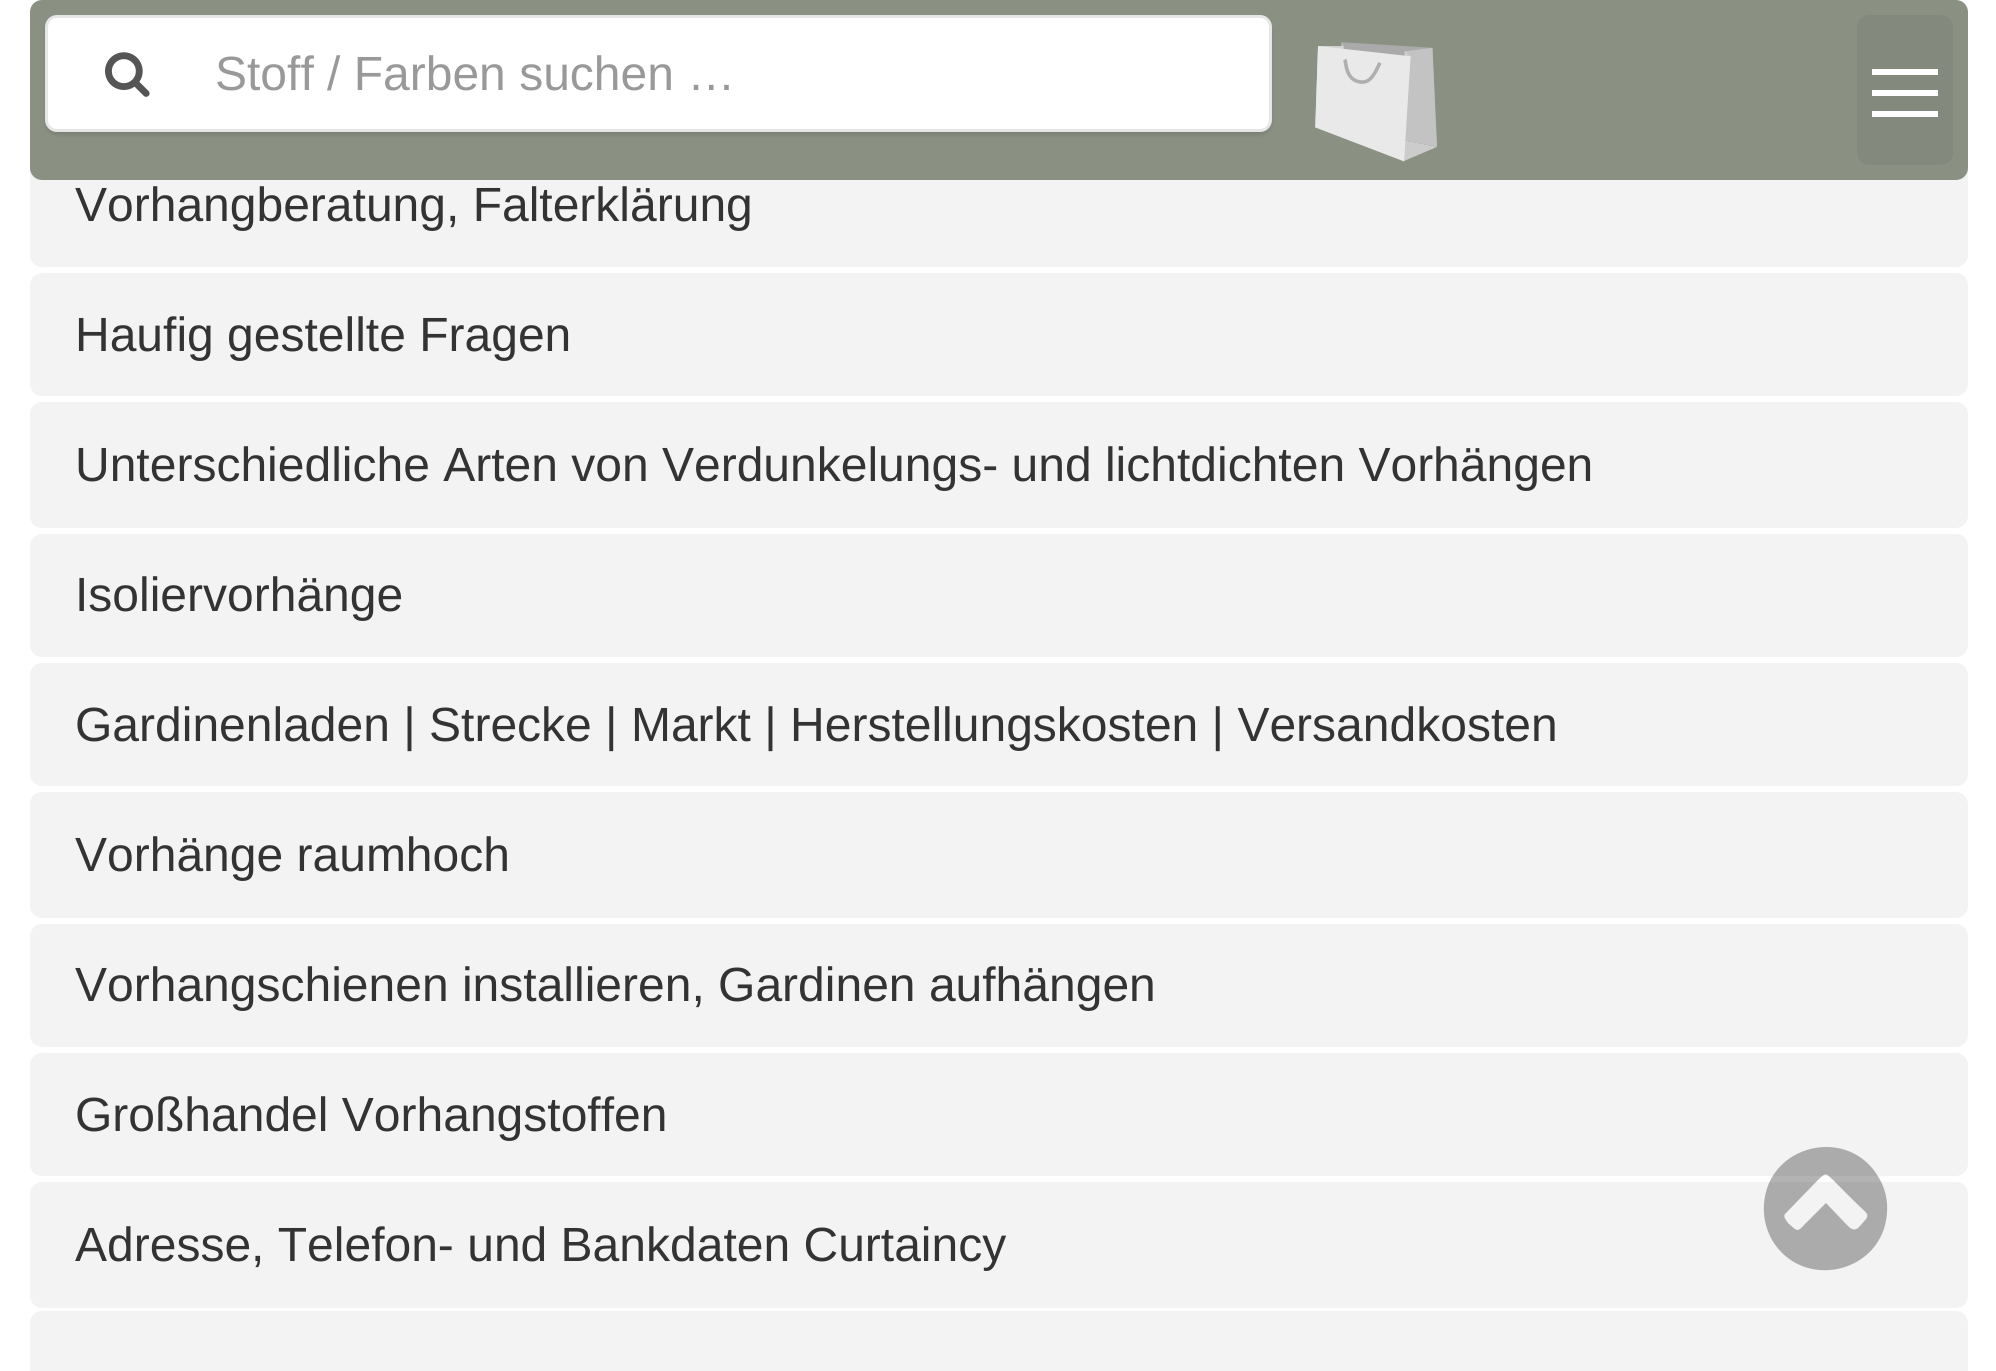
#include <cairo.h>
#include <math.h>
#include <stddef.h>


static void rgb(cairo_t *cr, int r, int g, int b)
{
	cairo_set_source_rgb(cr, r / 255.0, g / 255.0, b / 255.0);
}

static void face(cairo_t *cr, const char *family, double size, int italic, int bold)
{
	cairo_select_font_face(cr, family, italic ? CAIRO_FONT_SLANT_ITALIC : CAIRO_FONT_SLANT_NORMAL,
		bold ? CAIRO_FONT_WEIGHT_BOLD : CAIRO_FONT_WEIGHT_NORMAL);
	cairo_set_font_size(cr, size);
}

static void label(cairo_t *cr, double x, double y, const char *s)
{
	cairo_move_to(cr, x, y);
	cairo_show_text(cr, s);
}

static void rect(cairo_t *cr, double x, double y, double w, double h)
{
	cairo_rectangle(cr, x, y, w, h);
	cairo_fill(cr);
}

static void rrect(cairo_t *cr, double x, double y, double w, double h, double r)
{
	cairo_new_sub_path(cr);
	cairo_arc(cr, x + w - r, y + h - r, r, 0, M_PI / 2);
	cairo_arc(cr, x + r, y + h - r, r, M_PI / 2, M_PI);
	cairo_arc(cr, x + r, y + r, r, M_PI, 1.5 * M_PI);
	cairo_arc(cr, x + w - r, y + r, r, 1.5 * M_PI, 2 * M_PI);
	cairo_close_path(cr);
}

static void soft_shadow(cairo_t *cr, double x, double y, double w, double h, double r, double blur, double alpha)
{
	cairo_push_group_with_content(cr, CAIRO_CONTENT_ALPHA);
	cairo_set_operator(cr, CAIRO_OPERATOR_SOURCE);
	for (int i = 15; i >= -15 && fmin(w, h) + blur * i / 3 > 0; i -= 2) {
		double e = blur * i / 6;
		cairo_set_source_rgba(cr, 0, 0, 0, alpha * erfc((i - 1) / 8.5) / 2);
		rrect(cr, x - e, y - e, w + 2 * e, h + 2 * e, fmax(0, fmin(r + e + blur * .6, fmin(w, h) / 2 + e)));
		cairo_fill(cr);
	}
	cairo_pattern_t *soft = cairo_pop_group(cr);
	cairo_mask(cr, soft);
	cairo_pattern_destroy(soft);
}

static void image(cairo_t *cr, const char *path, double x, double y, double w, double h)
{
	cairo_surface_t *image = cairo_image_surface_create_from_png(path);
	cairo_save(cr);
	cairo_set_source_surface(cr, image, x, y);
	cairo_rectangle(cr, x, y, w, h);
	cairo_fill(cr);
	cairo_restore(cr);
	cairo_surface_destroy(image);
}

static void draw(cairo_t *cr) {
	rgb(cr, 255, 255, 255);
	cairo_paint(cr);
	rgb(cr, 243, 243, 243);
	rrect(cr, 30, 144, 1938, 123, 12);
	cairo_fill(cr);
	rgb(cr, 138, 144, 130);
	rrect(cr, 30, 0, 1938, 180, 12);
	cairo_fill(cr);
	rgb(cr, 0, 0, 0);
	soft_shadow(cr, 45, 18, 1227, 117, 12, 1.5, 0.1);
	rgb(cr, 255, 255, 255);
	rrect(cr, 45, 15, 1227, 117, 12);
	cairo_fill(cr);
	rrect(cr, 46.5, 16.5, 1224, 114, 10.5);
	cairo_set_source_rgba(cr, 0, 0, 0, 0.1);
	cairo_set_line_width(cr, 3);
	cairo_stroke(cr);
	image(cr, "image0.png", 105, 52, 45, 45);
	face(cr, "Liberation Sans", 48, 0, 0);
	rgb(cr, 153, 153, 153);
	label(cr, 215, 90, "Stoff / Farben suchen …");
	image(cr, "image1.png", 1315, 42, 122, 120);
	rgb(cr, 131, 137, 124);
	rrect(cr, 1857, 15, 96, 150, 12);
	cairo_fill(cr);
	rgb(cr, 255, 255, 255);
	rect(cr, 1872, 69, 66, 6);
	rect(cr, 1872, 90, 66, 6);
	rect(cr, 1872, 111, 66, 6);
	rgb(cr, 51, 51, 51);
	label(cr, 75, 221, "Vorhangberatung, Falterklärung");
	rgb(cr, 243, 243, 243);
	rrect(cr, 30, 273, 1938, 123, 12);
	cairo_fill(cr);
	rgb(cr, 51, 51, 51);
	label(cr, 75, 351, "Haufig gestellte Fragen");
	rgb(cr, 243, 243, 243);
	rrect(cr, 30, 402, 1938, 126, 12);
	cairo_fill(cr);
	rgb(cr, 51, 51, 51);
	label(cr, 75, 481, "Unterschiedliche Arten von Verdunkelungs- und lichtdichten Vorhängen");
	rgb(cr, 243, 243, 243);
	rrect(cr, 30, 534, 1938, 123, 12);
	cairo_fill(cr);
	rgb(cr, 51, 51, 51);
	label(cr, 75, 611, "Isoliervorhänge");
	rgb(cr, 243, 243, 243);
	rrect(cr, 30, 663, 1938, 123, 12);
	cairo_fill(cr);
	rgb(cr, 51, 51, 51);
	label(cr, 75, 741, "Gardinenladen | Strecke | Markt | Herstellungskosten | Versandkosten");
	rgb(cr, 243, 243, 243);
	rrect(cr, 30, 792, 1938, 126, 12);
	cairo_fill(cr);
	rgb(cr, 51, 51, 51);
	label(cr, 75, 871, "Vorhänge raumhoch");
	rgb(cr, 243, 243, 243);
	rrect(cr, 30, 924, 1938, 123, 12);
	cairo_fill(cr);
	rgb(cr, 51, 51, 51);
	label(cr, 75, 1001, "Vorhangschienen installieren, Gardinen aufhängen");
	rgb(cr, 243, 243, 243);
	rrect(cr, 30, 1053, 1938, 123, 12);
	cairo_fill(cr);
	rgb(cr, 51, 51, 51);
	label(cr, 75, 1131, "Großhandel Vorhangstoffen");
	rgb(cr, 243, 243, 243);
	rrect(cr, 30, 1182, 1938, 126, 12);
	cairo_fill(cr);
	rgb(cr, 51, 51, 51);
	label(cr, 75, 1261, "Adresse, Telefon- und Bankdaten Curtaincy");
	rgb(cr, 243, 243, 243);
	rrect(cr, 30, 1311, 1938, 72, 12);
	cairo_fill(cr);
	cairo_set_source_rgba(cr, 0, 0, 0, 0.3);
	cairo_new_path(cr);
	cairo_move_to(cr, 1858, 1228);
	cairo_curve_to(cr, 1872, 1213, 1870, 1217, 1854, 1201);
	cairo_line_to(cr, 1835, 1182);
	cairo_curve_to(cr, 1825, 1172, 1826, 1172, 1816, 1182);
	cairo_line_to(cr, 1786, 1213);
	cairo_curve_to(cr, 1782, 1216, 1786, 1220, 1788, 1223);
	cairo_curve_to(cr, 1797, 1231, 1797, 1233, 1805, 1224);
	cairo_line_to(cr, 1826, 1203);
	cairo_line_to(cr, 1846, 1224);
	cairo_curve_to(cr, 1849, 1227, 1853, 1232, 1858, 1228);
	cairo_close_path(cr);
	cairo_move_to(cr, 1879, 1178);
	cairo_curve_to(cr, 1885, 1188, 1888, 1200, 1887, 1213);
	cairo_curve_to(cr, 1883, 1273, 1803, 1292, 1772, 1240);
	cairo_curve_to(cr, 1766, 1229, 1763, 1217, 1764, 1204);
	cairo_curve_to(cr, 1768, 1144, 1849, 1125, 1879, 1178);
	cairo_close_path(cr);
	cairo_fill(cr);
}

int main(void) {
	cairo_surface_t *surface = cairo_image_surface_create(CAIRO_FORMAT_RGB24, 1996, 1371);
	cairo_t *cr = cairo_create(surface);
	cairo_font_options_t *options = cairo_font_options_create();
	cairo_font_options_set_hint_metrics(options, CAIRO_HINT_METRICS_OFF);
	cairo_font_options_set_hint_style(options, CAIRO_HINT_STYLE_NONE);
	cairo_set_font_options(cr, options);
	cairo_set_miter_limit(cr, 4);
	draw(cr);
	cairo_surface_write_to_png(surface, "render.png");
	cairo_font_options_destroy(options);
	cairo_destroy(cr);
	cairo_surface_destroy(surface);
	return 0;
}
